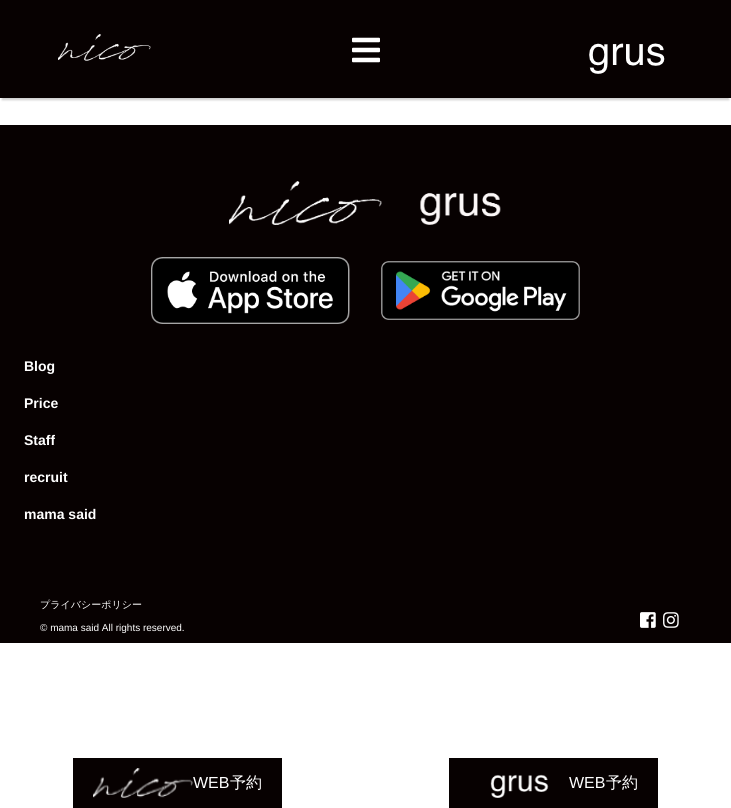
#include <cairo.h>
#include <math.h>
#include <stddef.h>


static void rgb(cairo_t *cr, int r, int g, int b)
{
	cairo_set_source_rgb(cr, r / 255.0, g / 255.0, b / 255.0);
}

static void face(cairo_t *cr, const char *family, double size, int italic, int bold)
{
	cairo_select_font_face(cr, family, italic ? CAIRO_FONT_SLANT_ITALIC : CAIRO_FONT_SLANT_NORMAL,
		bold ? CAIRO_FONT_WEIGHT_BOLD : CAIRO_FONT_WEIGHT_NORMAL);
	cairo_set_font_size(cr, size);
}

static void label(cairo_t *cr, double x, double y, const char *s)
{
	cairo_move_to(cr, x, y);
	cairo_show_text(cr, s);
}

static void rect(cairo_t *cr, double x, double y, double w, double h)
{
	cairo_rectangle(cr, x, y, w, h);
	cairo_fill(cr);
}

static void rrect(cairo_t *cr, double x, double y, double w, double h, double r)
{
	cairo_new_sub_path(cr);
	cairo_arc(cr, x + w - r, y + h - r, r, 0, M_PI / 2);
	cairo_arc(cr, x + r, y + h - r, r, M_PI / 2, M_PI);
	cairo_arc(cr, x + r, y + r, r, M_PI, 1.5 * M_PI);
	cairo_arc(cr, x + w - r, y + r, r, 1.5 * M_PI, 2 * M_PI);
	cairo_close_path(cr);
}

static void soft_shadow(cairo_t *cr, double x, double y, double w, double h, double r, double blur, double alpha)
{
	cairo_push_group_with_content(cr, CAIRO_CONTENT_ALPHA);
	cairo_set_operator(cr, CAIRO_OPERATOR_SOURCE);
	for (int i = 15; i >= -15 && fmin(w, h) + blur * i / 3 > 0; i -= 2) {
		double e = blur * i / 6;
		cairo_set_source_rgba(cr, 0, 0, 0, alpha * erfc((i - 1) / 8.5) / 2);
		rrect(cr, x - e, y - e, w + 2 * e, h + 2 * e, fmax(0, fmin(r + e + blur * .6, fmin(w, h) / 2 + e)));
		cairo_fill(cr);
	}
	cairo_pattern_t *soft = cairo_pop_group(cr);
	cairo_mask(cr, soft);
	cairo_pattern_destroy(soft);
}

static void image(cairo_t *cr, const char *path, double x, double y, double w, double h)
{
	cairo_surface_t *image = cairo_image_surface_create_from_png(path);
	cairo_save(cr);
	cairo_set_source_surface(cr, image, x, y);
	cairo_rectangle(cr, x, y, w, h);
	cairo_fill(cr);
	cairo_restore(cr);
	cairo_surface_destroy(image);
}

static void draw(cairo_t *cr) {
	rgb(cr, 255, 255, 255);
	cairo_paint(cr);
	rgb(cr, 7, 1, 1);
	rect(cr, 0, 125, 731, 518);
	image(cr, "image0.png", 229, 181, 272, 44);
	image(cr, "image1.png", 151, 257, 199, 67);
	image(cr, "image2.png", 381, 261, 199, 59);
	face(cr, "Liberation Sans", 14, 0, 1);
	rgb(cr, 255, 255, 255);
	label(cr, 24, 371, "Blog");
	label(cr, 24, 408, "Price");
	label(cr, 24, 445, "Staff");
	label(cr, 24, 482, "recruit");
	label(cr, 24, 519, "mama said");
	face(cr, "WenQuanYi Zen Hei Medium", 10, 0, 0);
	label(cr, 40, 608, "プライバシーポリシー");
	face(cr, "Liberation Sans", 10, 0, 0);
	label(cr, 40, 631, "© mama said All rights reserved.");
	image(cr, "image3.png", 640, 612, 16, 16);
	image(cr, "image4.png", 663, 612, 16, 16);
	rgb(cr, 0, 0, 0);
	soft_shadow(cr, 2, 6, 727, 94, 0, 1, 0.2);
	rgb(cr, 7, 1, 1);
	rect(cr, 0, 0, 731, 98);
	image(cr, "image5.png", 58, 34, 93, 27);
	image(cr, "image6.png", 589, 43, 76, 31);
	image(cr, "image7.png", 352, 37, 28, 26);
	rect(cr, 73, 758, 209, 50);
	image(cr, "image8.png", 93, 768, 100, 30);
	face(cr, "Liberation Sans", 16, 0, 0);
	rgb(cr, 255, 255, 255);
	label(cr, 193, 788, "WEB");
	face(cr, "WenQuanYi Zen Hei Medium", 16, 0, 0);
	label(cr, 230, 788, "予約");
	rgb(cr, 7, 1, 1);
	rect(cr, 449, 758, 209, 50);
	image(cr, "image9.png", 490, 774, 59, 24);
	face(cr, "Liberation Sans", 16, 0, 0);
	rgb(cr, 255, 255, 255);
	label(cr, 569, 788, "WEB");
	face(cr, "WenQuanYi Zen Hei Medium", 16, 0, 0);
	label(cr, 606, 788, "予約");
}

int main(void) {
	cairo_surface_t *surface = cairo_image_surface_create(CAIRO_FORMAT_RGB24, 731, 808);
	cairo_t *cr = cairo_create(surface);
	cairo_font_options_t *options = cairo_font_options_create();
	cairo_font_options_set_hint_metrics(options, CAIRO_HINT_METRICS_OFF);
	cairo_font_options_set_hint_style(options, CAIRO_HINT_STYLE_NONE);
	cairo_set_font_options(cr, options);
	cairo_set_miter_limit(cr, 4);
	draw(cr);
	cairo_surface_write_to_png(surface, "render.png");
	cairo_font_options_destroy(options);
	cairo_destroy(cr);
	cairo_surface_destroy(surface);
	return 0;
}
